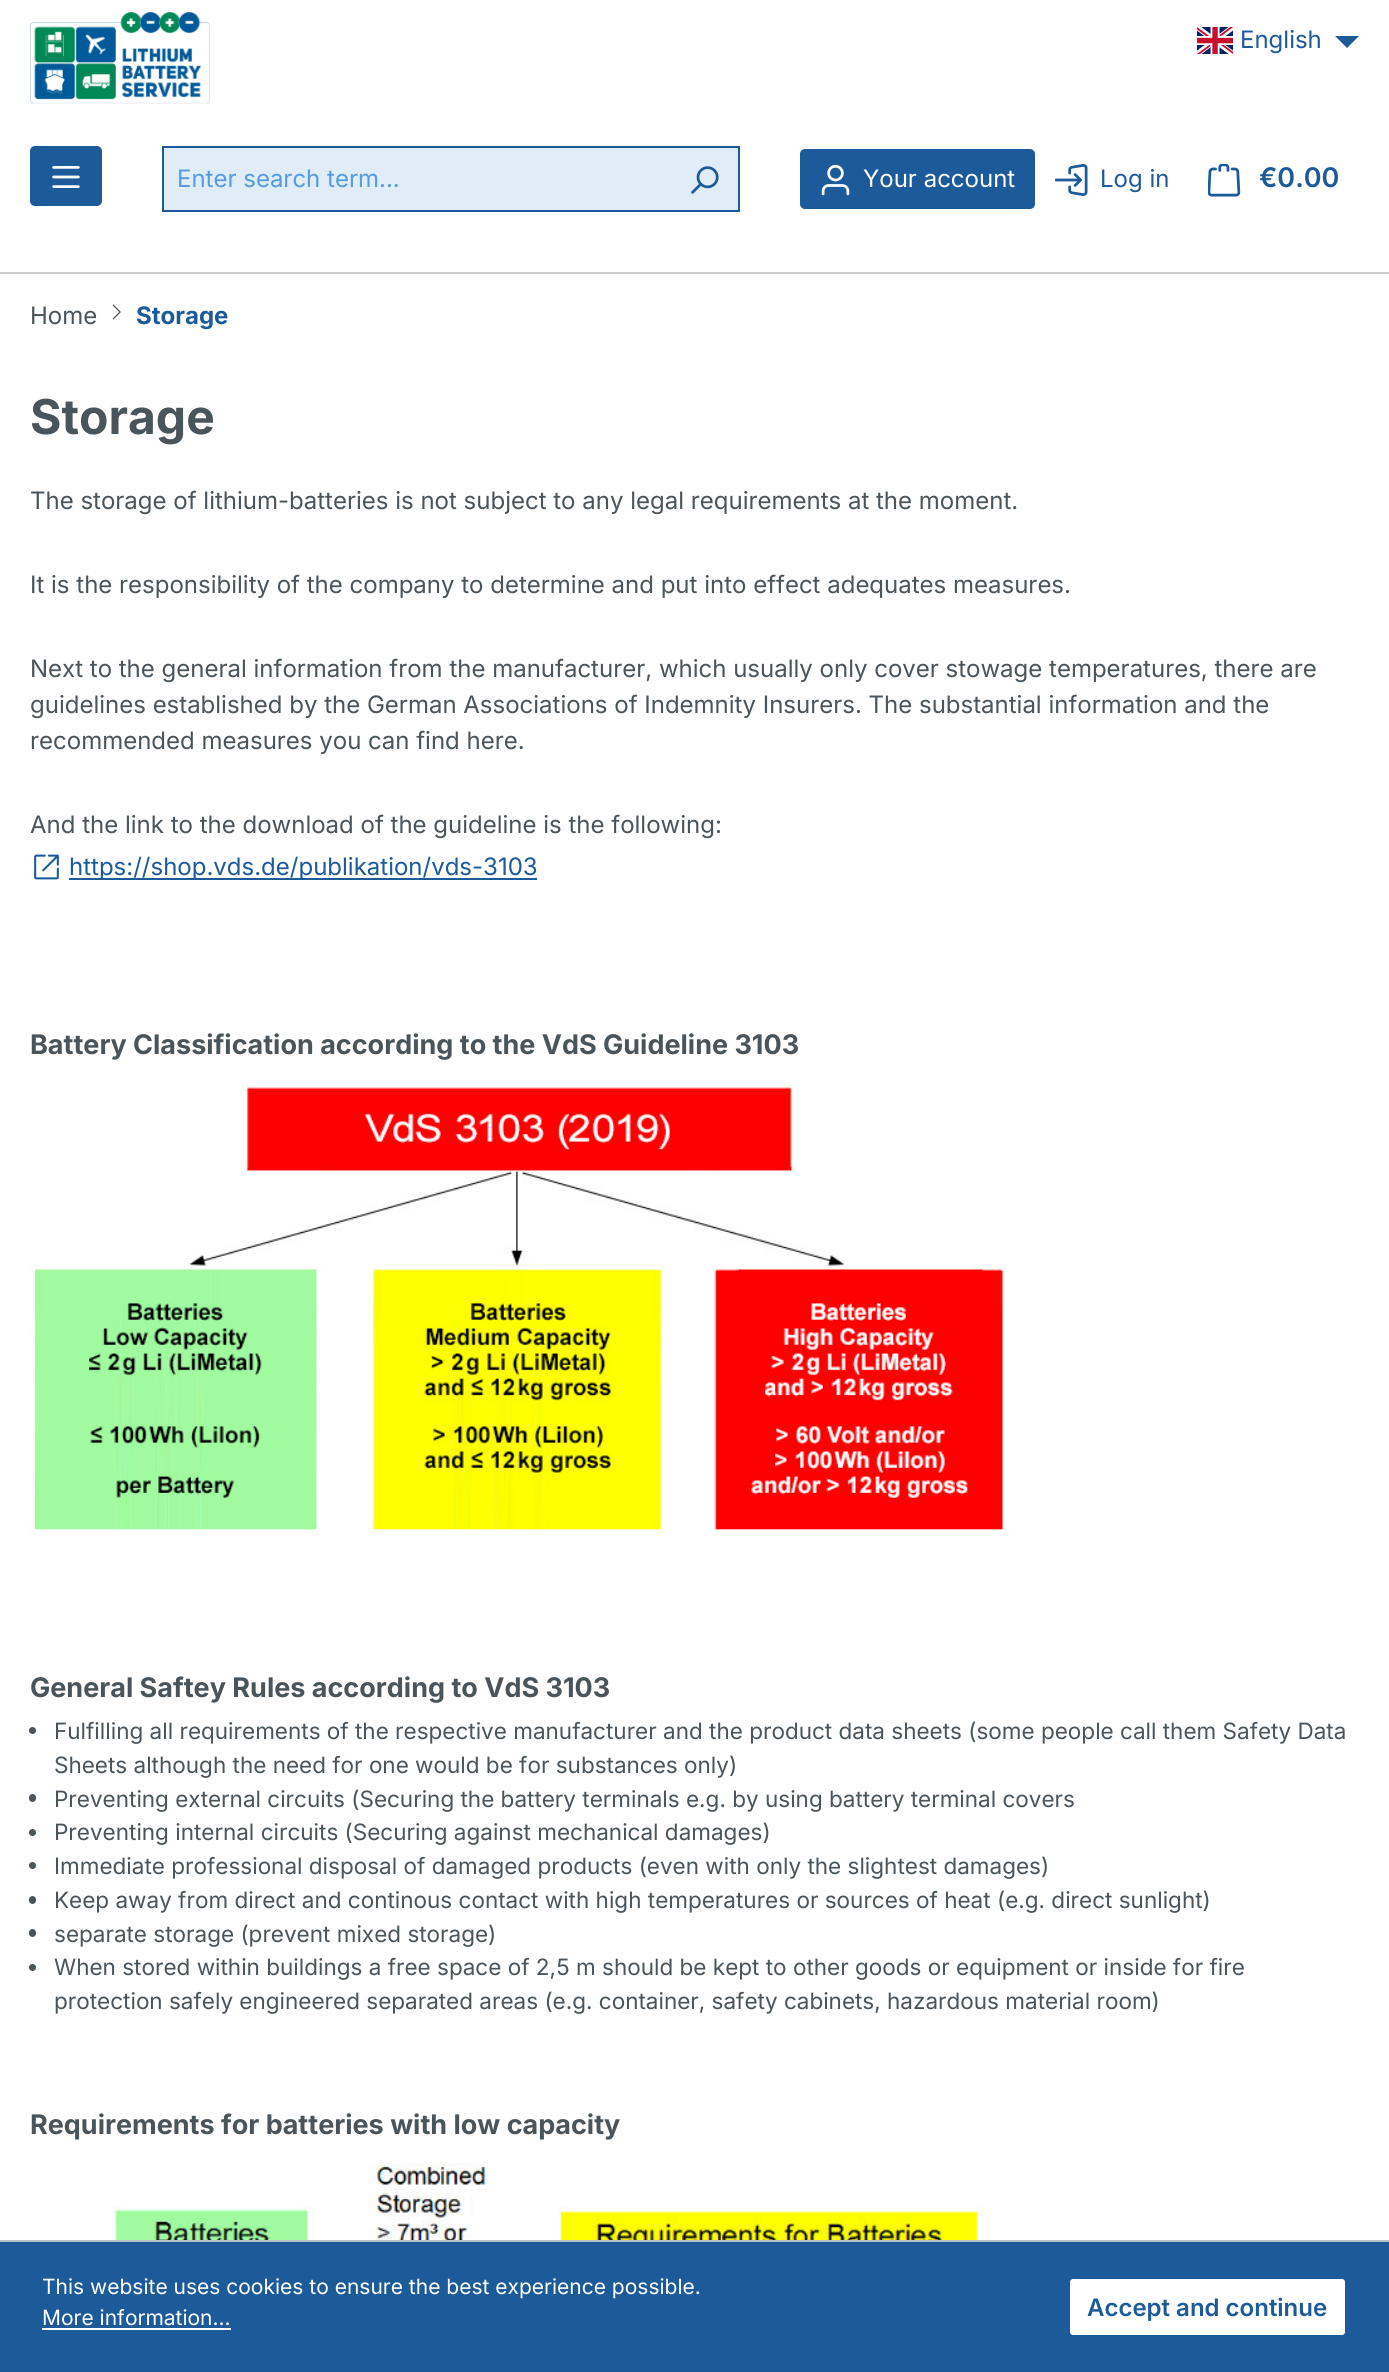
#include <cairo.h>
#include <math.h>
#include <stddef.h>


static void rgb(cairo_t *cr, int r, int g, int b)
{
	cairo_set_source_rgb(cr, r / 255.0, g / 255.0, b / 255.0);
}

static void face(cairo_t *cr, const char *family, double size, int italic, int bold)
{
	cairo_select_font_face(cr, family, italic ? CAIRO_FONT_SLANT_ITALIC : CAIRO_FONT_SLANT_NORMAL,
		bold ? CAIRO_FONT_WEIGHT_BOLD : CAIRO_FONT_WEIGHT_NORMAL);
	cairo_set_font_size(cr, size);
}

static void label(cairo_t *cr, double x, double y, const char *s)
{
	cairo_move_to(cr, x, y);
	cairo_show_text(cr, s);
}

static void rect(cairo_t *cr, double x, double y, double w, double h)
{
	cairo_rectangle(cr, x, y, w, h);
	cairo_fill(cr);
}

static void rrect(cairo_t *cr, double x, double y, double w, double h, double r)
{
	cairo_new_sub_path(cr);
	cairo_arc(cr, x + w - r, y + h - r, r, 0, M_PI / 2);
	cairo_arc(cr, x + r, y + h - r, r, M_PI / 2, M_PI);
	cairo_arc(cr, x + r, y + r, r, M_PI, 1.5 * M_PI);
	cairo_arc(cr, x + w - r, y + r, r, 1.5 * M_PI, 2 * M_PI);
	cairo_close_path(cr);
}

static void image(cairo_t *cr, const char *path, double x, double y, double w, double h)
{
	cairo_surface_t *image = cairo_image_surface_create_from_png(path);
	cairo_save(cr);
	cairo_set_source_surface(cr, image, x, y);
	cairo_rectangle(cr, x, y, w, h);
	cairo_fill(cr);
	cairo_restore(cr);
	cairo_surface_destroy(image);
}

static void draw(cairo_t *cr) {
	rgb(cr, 255, 255, 255);
	cairo_paint(cr);
	rgb(cr, 204, 204, 204);
	rect(cr, 0, 272, 1389, 2);
	image(cr, "image0.png", 1197, 27, 36, 27);
	face(cr, "Inter", 24, 0, 0);
	rgb(cr, 29, 90, 153);
	label(cr, 1240, 48, "English");
	cairo_new_path(cr);
	cairo_move_to(cr, 1335, 36);
	cairo_line_to(cr, 1359, 36);
	cairo_line_to(cr, 1347, 48);
	cairo_close_path(cr);
	cairo_fill(cr);
	image(cr, "image1.png", 30, 12, 180, 92);
	rrect(cr, 30, 146, 72, 60, 5);
	cairo_fill(cr);
	image(cr, "image2.png", 52, 166, 28, 22);
	rgb(cr, 224, 236, 248);
	rect(cr, 164, 148, 574, 62);
	rgb(cr, 29, 90, 153);
	rect(cr, 162, 146, 578, 2);
	rect(cr, 162, 210, 509, 2);
	rect(cr, 162, 146, 2, 66);
	rgb(cr, 86, 154, 223);
	label(cr, 177, 187, "Enter search term...");
	rgb(cr, 29, 90, 153);
	rect(cr, 738, 146, 2, 66);
	rect(cr, 669, 210, 71, 2);
	image(cr, "image3.png", 691, 166, 28, 28);
	rrect(cr, 800, 149, 235, 60, 5);
	cairo_fill(cr);
	image(cr, "image4.png", 821, 164, 29, 32);
	rgb(cr, 255, 255, 255);
	label(cr, 863, 187, "Your account");
	image(cr, "image5.png", 1055, 164, 33, 32);
	rgb(cr, 29, 90, 153);
	label(cr, 1100, 187, "Log in");
	image(cr, "image6.png", 1208, 164, 33, 33);
	face(cr, "Inter SemiBold", 27, 0, 0);
	label(cr, 1259, 187, "€0.00");
	face(cr, "Inter", 24, 0, 0);
	rgb(cr, 74, 84, 91);
	label(cr, 30, 324, "Home");
	image(cr, "image7.png", 112, 304, 9, 16);
	face(cr, "Inter", 24, 0, 1);
	rgb(cr, 29, 90, 153);
	label(cr, 136, 324, "Storage");
	face(cr, "Inter", 48, 0, 1);
	rgb(cr, 74, 84, 91);
	label(cr, 30, 434, "Storage");
	face(cr, "Inter", 24, 0, 0);
	label(cr, 30, 509, "The storage of lithium-batteries is not subject to any legal requirements at the moment.");
	label(cr, 30, 593, "It is the responsibility of the company to determine and put into effect adequates measures.");
	label(cr, 30, 677, "Next to the general information from the manufacturer, which usually only cover stowage temperatures, there are");
	label(cr, 30, 713, "guidelines established by the German Associations of Indemnity Insurers. The substantial information and the");
	label(cr, 30, 749, "recommended measures you can find here.");
	label(cr, 30, 833, "And the link to the download of the guideline is the following:");
	image(cr, "image8.png", 34, 854, 25, 26);
	rgb(cr, 29, 90, 153);
	rect(cr, 69, 878, 468, 2);
	label(cr, 69, 875, "https://shop.vds.de/publikation/vds-3103");
	face(cr, "Inter", 27, 0, 1);
	rgb(cr, 74, 84, 91);
	label(cr, 30, 1054, "Battery Classification according to the VdS Guideline 3103");
	image(cr, "image9.png", 30, 1082, 975, 451);
	label(cr, 30, 1697, "General Saftey Rules according to VdS 3103");
	cairo_new_path(cr);
	cairo_arc(cr, 32.5, 1730.5, 3.5, 0, 2 * M_PI);
	cairo_fill(cr);
	face(cr, "Inter", 22.5, 0, 0);
	label(cr, 54, 1739, "Fulfilling all requirements of the respective manufacturer and the product data sheets (some people call them Safety Data");
	label(cr, 54, 1773, "Sheets although the need for one would be for substances only)");
	rrect(cr, 29, 1794, 7, 8, 3.5);
	cairo_fill(cr);
	label(cr, 54, 1807, "Preventing external circuits (Securing the battery terminals e.g. by using battery terminal covers");
	cairo_new_path(cr);
	cairo_arc(cr, 32.5, 1832.5, 3.5, 0, 2 * M_PI);
	cairo_fill(cr);
	label(cr, 54, 1840, "Preventing internal circuits (Securing against mechanical damages)");
	cairo_new_path(cr);
	cairo_arc(cr, 32.5, 1865.5, 3.5, 0, 2 * M_PI);
	cairo_fill(cr);
	label(cr, 54, 1874, "Immediate professional disposal of damaged products (even with only the slightest damages)");
	rrect(cr, 29, 1896, 7, 8, 3.5);
	cairo_fill(cr);
	label(cr, 54, 1908, "Keep away from direct and continous contact with high temperatures or sources of heat (e.g. direct sunlight)");
	rrect(cr, 29, 1929, 7, 8, 3.5);
	cairo_fill(cr);
	label(cr, 54, 1942, "separate storage (prevent mixed storage)");
	cairo_new_path(cr);
	cairo_arc(cr, 32.5, 1967.5, 3.5, 0, 2 * M_PI);
	cairo_fill(cr);
	label(cr, 54, 1975, "When stored within buildings a free space of 2,5 m should be kept to other goods or equipment or inside for fire");
	label(cr, 54, 2009, "protection safely engineered separated areas (e.g. container, safety cabinets, hazardous material room)");
	face(cr, "Inter", 27, 0, 1);
	label(cr, 30, 2134, "Requirements for batteries with low capacity");
	image(cr, "image10.png", 112, 2163, 874, 77);
	rgb(cr, 29, 90, 153);
	rect(cr, 0, 2242, 1389, 130);
	rgb(cr, 188, 193, 199);
	rect(cr, 0, 2240, 1389, 2);
	face(cr, "Inter", 21, 0, 0);
	rgb(cr, 255, 255, 255);
	label(cr, 42, 2294, "This website uses cookies to ensure the best experience possible.");
	label(cr, 42, 2325, "More information...");
	rect(cr, 42, 2328, 189, 2);
	rrect(cr, 1069, 2278, 277, 58, 4);
	cairo_fill_preserve(cr);
	rgb(cr, 29, 90, 153);
	cairo_stroke(cr);
	face(cr, "Inter SemiBold", 24, 0, 0);
	label(cr, 1087, 2316, "Accept and continue");
}

int main(void) {
	cairo_surface_t *surface = cairo_image_surface_create(CAIRO_FORMAT_RGB24, 1389, 2372);
	cairo_t *cr = cairo_create(surface);
	cairo_font_options_t *options = cairo_font_options_create();
	cairo_font_options_set_hint_metrics(options, CAIRO_HINT_METRICS_OFF);
	cairo_font_options_set_hint_style(options, CAIRO_HINT_STYLE_NONE);
	cairo_set_font_options(cr, options);
	cairo_set_miter_limit(cr, 4);
	draw(cr);
	cairo_surface_write_to_png(surface, "render.png");
	cairo_font_options_destroy(options);
	cairo_destroy(cr);
	cairo_surface_destroy(surface);
	return 0;
}
